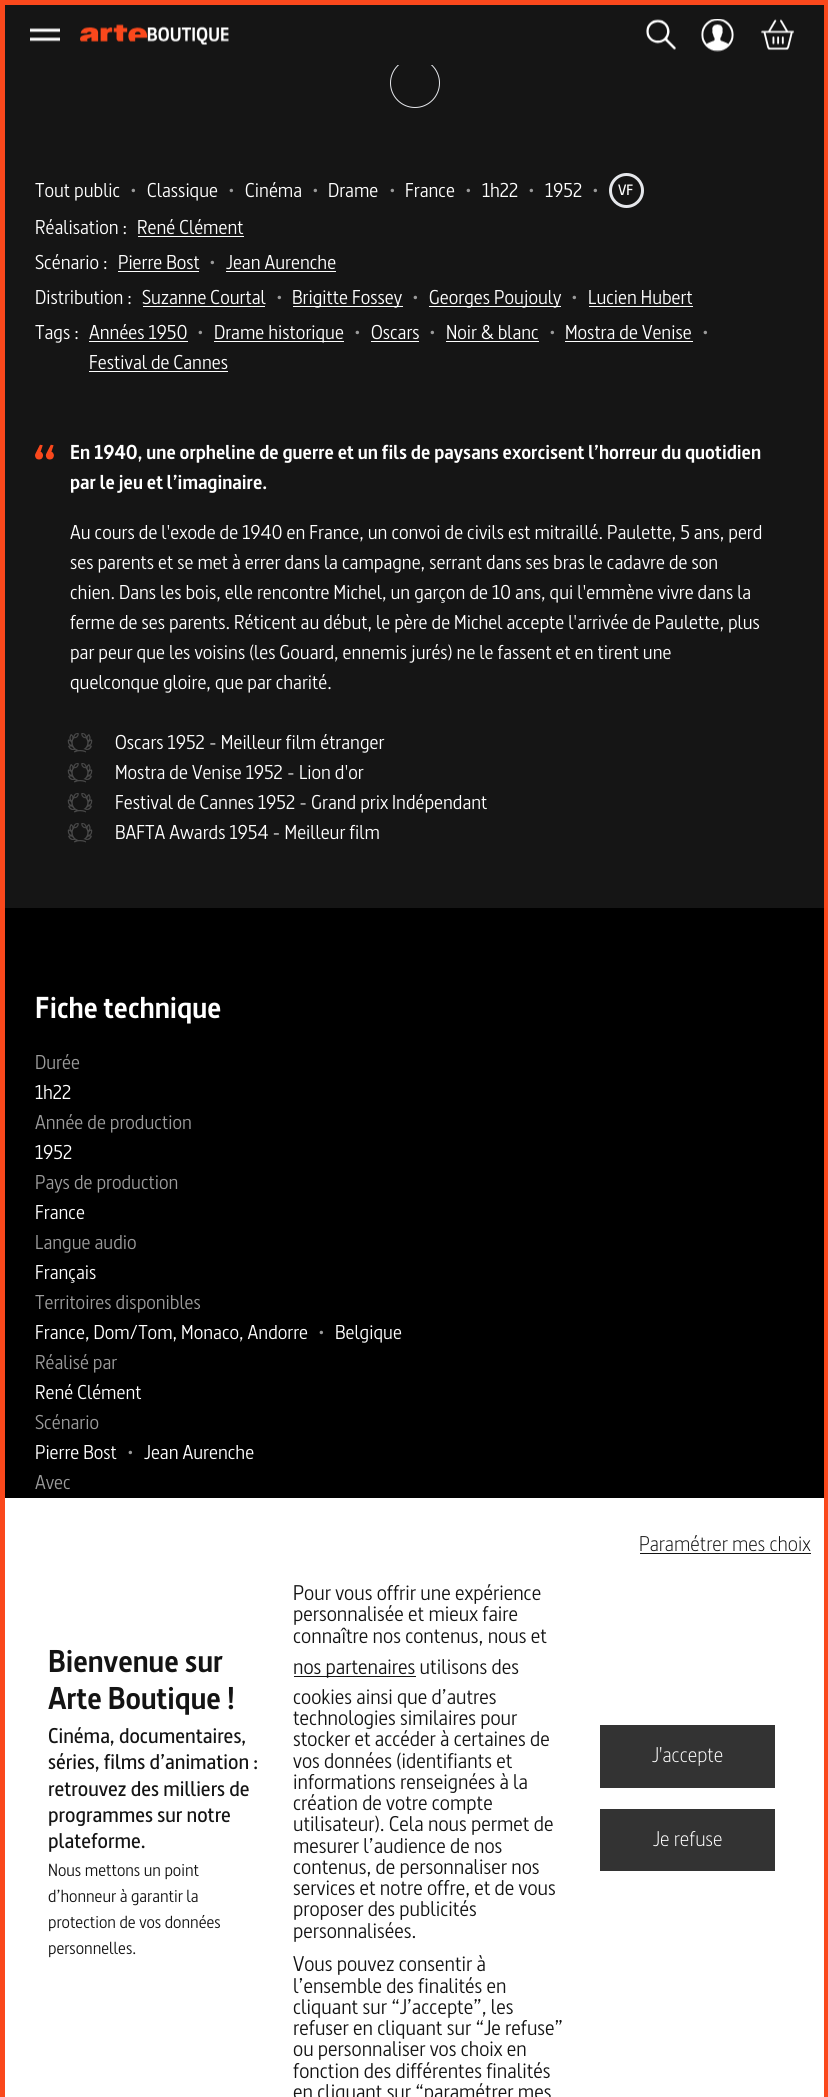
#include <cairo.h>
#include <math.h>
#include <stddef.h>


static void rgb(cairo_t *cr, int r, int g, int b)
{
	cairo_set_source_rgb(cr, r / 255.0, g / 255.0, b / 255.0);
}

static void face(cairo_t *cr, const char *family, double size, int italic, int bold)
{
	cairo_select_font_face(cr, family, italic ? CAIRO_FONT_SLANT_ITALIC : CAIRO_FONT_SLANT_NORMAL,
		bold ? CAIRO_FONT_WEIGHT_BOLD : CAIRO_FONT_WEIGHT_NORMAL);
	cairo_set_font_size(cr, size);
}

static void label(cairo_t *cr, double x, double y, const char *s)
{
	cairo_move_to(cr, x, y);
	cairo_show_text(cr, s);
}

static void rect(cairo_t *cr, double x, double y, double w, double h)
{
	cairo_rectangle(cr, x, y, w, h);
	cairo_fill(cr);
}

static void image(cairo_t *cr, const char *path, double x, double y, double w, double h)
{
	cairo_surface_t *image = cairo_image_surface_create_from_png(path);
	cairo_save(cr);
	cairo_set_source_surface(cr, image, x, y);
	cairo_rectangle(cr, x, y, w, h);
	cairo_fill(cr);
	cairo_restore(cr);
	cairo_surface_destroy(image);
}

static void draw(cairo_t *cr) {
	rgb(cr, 21, 21, 21);
	cairo_paint(cr);
	rgb(cr, 250, 72, 28);
	rect(cr, 824, 0, 4, 2097);
	rect(cr, 0, 0, 5, 2097);
	cairo_arc(cr, 415, 83, 24.5, 0, 2 * M_PI);
	rgb(cr, 229, 231, 235);
	cairo_set_line_width(cr, 1);
	cairo_stroke(cr);
	rgb(cr, 21, 21, 21);
	rect(cr, 397, 58, 36, 7);
	rgb(cr, 250, 72, 28);
	rect(cr, 5, 0, 819, 5);
	image(cr, "image0.png", 30, 28, 30, 14);
	image(cr, "image1.png", 80, 24, 149, 22);
	image(cr, "image2.png", 646, 19, 30, 31);
	image(cr, "image3.png", 701, 19, 33, 33);
	image(cr, "image4.png", 761, 19, 33, 32);
	face(cr, "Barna", 20, 0, 0);
	rgb(cr, 255, 255, 255);
	label(cr, 35, 197, "Tout public");
	rgb(cr, 155, 155, 155);
	label(cr, 130, 197, "•");
	rgb(cr, 255, 255, 255);
	label(cr, 147, 197, "Classique");
	rgb(cr, 155, 155, 155);
	label(cr, 228, 197, "•");
	rgb(cr, 255, 255, 255);
	label(cr, 245, 197, "Cinéma");
	rgb(cr, 155, 155, 155);
	label(cr, 312, 197, "•");
	rgb(cr, 255, 255, 255);
	label(cr, 328, 197, "Drame");
	rgb(cr, 155, 155, 155);
	label(cr, 389, 197, "•");
	rgb(cr, 255, 255, 255);
	label(cr, 405, 197, "France");
	rgb(cr, 155, 155, 155);
	label(cr, 465, 197, "•");
	rgb(cr, 255, 255, 255);
	label(cr, 482, 197, "1h22");
	rgb(cr, 155, 155, 155);
	label(cr, 528, 197, "•");
	rgb(cr, 255, 255, 255);
	label(cr, 545, 197, "1952");
	rgb(cr, 155, 155, 155);
	label(cr, 592, 197, "•");
	cairo_new_path(cr);
	cairo_arc(cr, 626.5, 190.5, 16, 0, 2 * M_PI);
	rgb(cr, 229, 231, 235);
	cairo_set_line_width(cr, 3);
	cairo_stroke(cr);
	face(cr, "Barna SemiBold", 15, 0, 0);
	rgb(cr, 255, 255, 255);
	label(cr, 618, 195, "VF");
	face(cr, "Barna", 20, 0, 0);
	label(cr, 35, 234, "Réalisation :");
	label(cr, 137, 234, "René Clément");
	rect(cr, 138, 236, 106, 1);
	label(cr, 35, 269, "Scénario :");
	label(cr, 118, 269, "Pierre Bost");
	rect(cr, 118, 271, 81, 1);
	rgb(cr, 155, 155, 155);
	label(cr, 209, 269, "•");
	rgb(cr, 255, 255, 255);
	label(cr, 226, 269, "Jean Aurenche");
	rect(cr, 226, 271, 110, 1);
	label(cr, 35, 304, "Distribution :");
	label(cr, 142, 304, "Suzanne Courtal");
	rect(cr, 143, 306, 122, 1);
	rgb(cr, 155, 155, 155);
	label(cr, 276, 304, "•");
	rgb(cr, 255, 255, 255);
	rect(cr, 293, 306, 110, 1);
	label(cr, 292, 304, "Brigitte Fossey");
	rgb(cr, 155, 155, 155);
	label(cr, 412, 304, "•");
	rgb(cr, 255, 255, 255);
	rect(cr, 429, 306, 132, 1);
	label(cr, 429, 304, "Georges Poujouly");
	rgb(cr, 155, 155, 155);
	label(cr, 571, 304, "•");
	rgb(cr, 255, 255, 255);
	label(cr, 588, 304, "Lucien Hubert");
	rect(cr, 589, 306, 104, 1);
	label(cr, 35, 339, "Tags :");
	label(cr, 89, 339, "Années 1950");
	rect(cr, 89, 341, 99, 1);
	rgb(cr, 155, 155, 155);
	label(cr, 197, 339, "•");
	rgb(cr, 255, 255, 255);
	rect(cr, 214, 341, 130, 1);
	label(cr, 214, 339, "Drame historique");
	rgb(cr, 155, 155, 155);
	label(cr, 354, 339, "•");
	rgb(cr, 255, 255, 255);
	label(cr, 371, 339, "Oscars");
	rect(cr, 371, 341, 48, 1);
	rgb(cr, 155, 155, 155);
	label(cr, 429, 339, "•");
	rgb(cr, 255, 255, 255);
	label(cr, 446, 339, "Noir & blanc");
	rect(cr, 446, 341, 93, 1);
	rgb(cr, 155, 155, 155);
	label(cr, 549, 339, "•");
	rgb(cr, 255, 255, 255);
	label(cr, 565, 339, "Mostra de Venise");
	rect(cr, 565, 341, 128, 1);
	rgb(cr, 155, 155, 155);
	label(cr, 702, 339, "•");
	rgb(cr, 255, 255, 255);
	label(cr, 89, 369, "Festival de Cannes");
	rect(cr, 89, 371, 139, 1);
	image(cr, "image5.png", 35, 444, 19, 16);
	face(cr, "Barna", 20, 0, 1);
	label(cr, 70, 459, "En 1940, une orpheline de guerre et un fils de paysans exorcisent l’horreur du quotidien");
	label(cr, 70, 489, "par le jeu et l’imaginaire.");
	face(cr, "Barna", 20, 0, 0);
	label(cr, 70, 539, "Au cours de l'exode de 1940 en France, un convoi de civils est mitraillé. Paulette, 5 ans, perd");
	label(cr, 70, 569, "ses parents et se met à errer dans la campagne, serrant dans ses bras le cadavre de son");
	label(cr, 70, 599, "chien. Dans les bois, elle rencontre Michel, un garçon de 10 ans, qui l'emmène vivre dans la");
	label(cr, 70, 629, "ferme de ses parents. Réticent au début, le père de Michel accepte l'arrivée de Paulette, plus");
	label(cr, 70, 659, "par peur que les voisins (les Gouard, ennemis jurés) ne le fassent et en tirent une");
	label(cr, 70, 689, "quelconque gloire, que par charité.");
	image(cr, "image6.png", 67, 733, 26, 20);
	label(cr, 115, 749, "Oscars 1952 - Meilleur film étranger");
	image(cr, "image6.png", 67, 763, 26, 20);
	label(cr, 115, 779, "Mostra de Venise 1952 - Lion d'or");
	image(cr, "image6.png", 67, 793, 26, 20);
	label(cr, 115, 809, "Festival de Cannes 1952 - Grand prix Indépendant");
	image(cr, "image6.png", 67, 823, 26, 20);
	label(cr, 115, 839, "BAFTA Awards 1954 - Meilleur film");
	rgb(cr, 0, 0, 0);
	rect(cr, 5, 908, 819, 590);
	face(cr, "Barna", 30, 0, 1);
	rgb(cr, 255, 255, 255);
	label(cr, 35, 1018, "Fiche technique");
	face(cr, "Barna", 20, 0, 0);
	rgb(cr, 155, 155, 155);
	label(cr, 35, 1069, "Durée");
	rgb(cr, 255, 255, 255);
	label(cr, 35, 1099, "1h22");
	rgb(cr, 155, 155, 155);
	label(cr, 35, 1129, "Année de production");
	rgb(cr, 255, 255, 255);
	label(cr, 35, 1159, "1952");
	rgb(cr, 155, 155, 155);
	label(cr, 35, 1189, "Pays de production");
	rgb(cr, 255, 255, 255);
	label(cr, 35, 1219, "France");
	rgb(cr, 155, 155, 155);
	label(cr, 35, 1249, "Langue audio");
	rgb(cr, 255, 255, 255);
	label(cr, 35, 1279, "Français");
	rgb(cr, 155, 155, 155);
	label(cr, 35, 1309, "Territoires disponibles");
	rgb(cr, 255, 255, 255);
	label(cr, 35, 1339, "France, Dom/Tom, Monaco, Andorre");
	rgb(cr, 155, 155, 155);
	label(cr, 318, 1339, "•");
	rgb(cr, 255, 255, 255);
	label(cr, 335, 1339, "Belgique");
	rgb(cr, 155, 155, 155);
	label(cr, 35, 1369, "Réalisé par");
	rgb(cr, 255, 255, 255);
	label(cr, 35, 1399, "René Clément");
	rgb(cr, 155, 155, 155);
	label(cr, 35, 1429, "Scénario");
	rgb(cr, 255, 255, 255);
	label(cr, 35, 1459, "Pierre Bost");
	rgb(cr, 155, 155, 155);
	label(cr, 127, 1459, "•");
	rgb(cr, 255, 255, 255);
	label(cr, 144, 1459, "Jean Aurenche");
	rgb(cr, 155, 155, 155);
	label(cr, 35, 1489, "Avec");
	rgb(cr, 255, 255, 255);
	rect(cr, 5, 1498, 819, 599);
	face(cr, "Barna Light", 21.25, 0, 0);
	rgb(cr, 20, 20, 20);
	label(cr, 639, 1551, "Paramétrer mes choix");
	rect(cr, 640, 1553, 171, 1);
	face(cr, "Barna", 31.25, 0, 1);
	label(cr, 48, 1672, "Bienvenue sur");
	label(cr, 48, 1709, "Arte Boutique !");
	face(cr, "Barna SemiBold", 21.25, 0, 0);
	label(cr, 48, 1743, "Cinéma, documentaires,");
	label(cr, 48, 1769, "séries, films d’animation :");
	label(cr, 48, 1796, "retrouvez des milliers de");
	label(cr, 48, 1822, "programmes sur notre");
	label(cr, 48, 1848, "plateforme.");
	face(cr, "Barna", 17.5, 0, 0);
	label(cr, 48, 1876, "Nous mettons un point");
	label(cr, 48, 1902, "d’honneur à garantir la");
	label(cr, 48, 1928, "protection de vos données");
	label(cr, 48, 1954, "personnelles.");
	face(cr, "Barna", 21.25, 0, 0);
	label(cr, 293, 1600, "Pour vous offrir une expérience");
	label(cr, 293, 1621, "personnalisée et mieux faire");
	label(cr, 293, 1643, "connaître nos contenus, nous et");
	rect(cr, 294, 1676, 122, 1);
	label(cr, 293, 1674, "nos partenaires utilisons des");
	label(cr, 293, 1704, "cookies ainsi que d’autres");
	label(cr, 293, 1725, "technologies similaires pour");
	label(cr, 293, 1746, "stocker et accéder à certaines de");
	label(cr, 293, 1768, "vos données (identifiants et");
	label(cr, 293, 1789, "informations renseignées à la");
	label(cr, 293, 1810, "création de votre compte");
	label(cr, 293, 1831, "utilisateur). Cela nous permet de");
	label(cr, 293, 1853, "mesurer l’audience de nos");
	label(cr, 293, 1874, "contenus, de personnaliser nos");
	label(cr, 293, 1895, "services et notre offre, et de vous");
	label(cr, 293, 1916, "proposer des publicités");
	label(cr, 293, 1938, "personnalisées.");
	label(cr, 293, 1971, "Vous pouvez consentir à");
	label(cr, 293, 1993, "l’ensemble des finalités en");
	label(cr, 293, 2014, "cliquant sur “J’accepte”, les");
	label(cr, 293, 2035, "refuser en cliquant sur “Je refuse”");
	label(cr, 293, 2056, "ou personnaliser vos choix en");
	label(cr, 293, 2078, "fonction des différentes finalités");
	label(cr, 293, 2099, "en cliquant sur “paramétrer mes");
	rgb(cr, 51, 51, 51);
	rect(cr, 600, 1725, 175, 63);
	face(cr, "Barna Light", 21.25, 0, 0);
	rgb(cr, 255, 255, 255);
	label(cr, 652, 1762, "J'accepte");
	rgb(cr, 51, 51, 51);
	rect(cr, 600, 1809, 175, 62);
	rgb(cr, 255, 255, 255);
	label(cr, 653, 1846, "Je refuse");
}

int main(void) {
	cairo_surface_t *surface = cairo_image_surface_create(CAIRO_FORMAT_RGB24, 828, 2097);
	cairo_t *cr = cairo_create(surface);
	cairo_font_options_t *options = cairo_font_options_create();
	cairo_font_options_set_hint_metrics(options, CAIRO_HINT_METRICS_OFF);
	cairo_font_options_set_hint_style(options, CAIRO_HINT_STYLE_NONE);
	cairo_set_font_options(cr, options);
	cairo_set_miter_limit(cr, 4);
	draw(cr);
	cairo_surface_write_to_png(surface, "render.png");
	cairo_font_options_destroy(options);
	cairo_destroy(cr);
	cairo_surface_destroy(surface);
	return 0;
}
